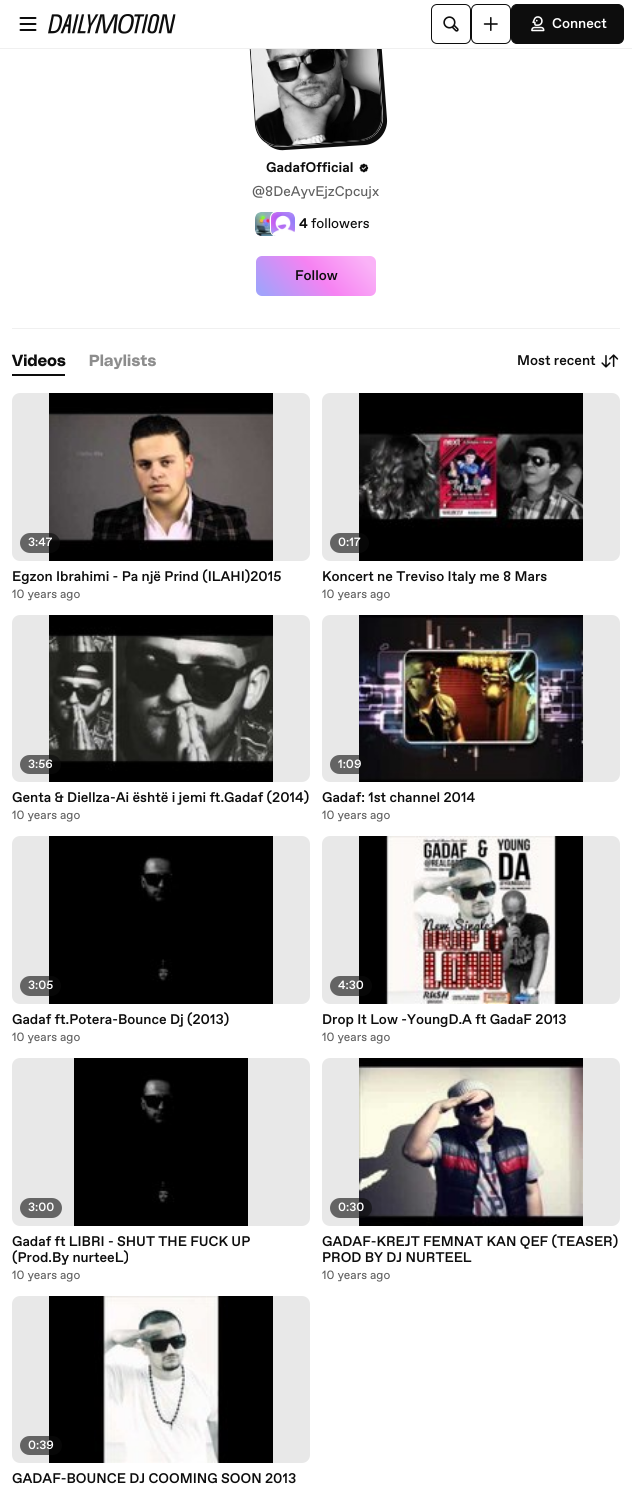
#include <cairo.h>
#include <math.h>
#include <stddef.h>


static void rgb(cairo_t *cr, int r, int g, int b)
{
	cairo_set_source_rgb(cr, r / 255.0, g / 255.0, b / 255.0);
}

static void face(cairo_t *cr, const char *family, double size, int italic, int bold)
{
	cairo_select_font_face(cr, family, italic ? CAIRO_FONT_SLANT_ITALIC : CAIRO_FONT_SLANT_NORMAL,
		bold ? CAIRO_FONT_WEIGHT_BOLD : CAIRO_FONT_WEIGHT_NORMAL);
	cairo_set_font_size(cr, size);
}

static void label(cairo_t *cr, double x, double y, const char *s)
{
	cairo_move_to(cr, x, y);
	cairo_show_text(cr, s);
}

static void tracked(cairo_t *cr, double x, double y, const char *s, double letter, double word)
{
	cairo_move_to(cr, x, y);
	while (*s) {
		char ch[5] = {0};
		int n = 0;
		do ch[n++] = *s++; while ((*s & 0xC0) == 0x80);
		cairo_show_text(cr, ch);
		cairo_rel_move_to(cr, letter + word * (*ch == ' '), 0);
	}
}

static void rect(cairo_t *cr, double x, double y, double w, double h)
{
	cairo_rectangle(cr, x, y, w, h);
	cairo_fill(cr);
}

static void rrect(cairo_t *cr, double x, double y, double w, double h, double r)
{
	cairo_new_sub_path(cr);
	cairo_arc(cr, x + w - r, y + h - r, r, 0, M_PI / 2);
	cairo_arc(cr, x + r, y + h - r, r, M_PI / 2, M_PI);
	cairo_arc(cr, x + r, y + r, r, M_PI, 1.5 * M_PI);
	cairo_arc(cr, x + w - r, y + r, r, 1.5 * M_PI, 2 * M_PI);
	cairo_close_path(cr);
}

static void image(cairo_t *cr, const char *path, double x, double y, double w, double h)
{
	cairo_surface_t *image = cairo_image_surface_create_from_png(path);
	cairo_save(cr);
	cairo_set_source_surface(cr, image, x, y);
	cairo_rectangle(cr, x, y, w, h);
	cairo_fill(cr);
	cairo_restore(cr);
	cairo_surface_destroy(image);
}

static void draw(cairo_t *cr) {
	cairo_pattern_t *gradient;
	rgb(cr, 255, 255, 255);
	cairo_paint(cr);
	rgb(cr, 13, 13, 13);
	cairo_new_path(cr);
	cairo_move_to(cr, 266, 143);
	cairo_curve_to(cr, 271, 148, 278, 151, 285, 150);
	cairo_line_to(cr, 365, 145);
	cairo_curve_to(cr, 378, 144, 388, 132, 387, 119);
	cairo_line_to(cr, 381, 39);
	cairo_curve_to(cr, 380, 31, 376, 25, 371, 21);
	cairo_curve_to(cr, 374, 25, 377, 30, 377, 36);
	cairo_line_to(cr, 383, 115);
	cairo_curve_to(cr, 384, 129, 374, 140, 360, 141);
	cairo_line_to(cr, 281, 147);
	cairo_curve_to(cr, 275, 147, 270, 146, 266, 143);
	cairo_close_path(cr);
	cairo_fill(cr);
	cairo_new_path(cr);
	cairo_move_to(cr, 271.5, 19.5);
	cairo_line_to(cr, 351.5, 14);
	cairo_curve_to(cr, 364.5, 13, 375.5, 22.5, 376.5, 35.5);
	cairo_line_to(cr, 382, 115.5);
	cairo_curve_to(cr, 383, 128.5, 373.5, 139.5, 360.5, 140.5);
	cairo_line_to(cr, 280.5, 146);
	cairo_curve_to(cr, 267.5, 147, 256.5, 137.5, 255.5, 124.5);
	cairo_line_to(cr, 250, 44.5);
	cairo_curve_to(cr, 249, 31.5, 258.5, 20.5, 271.5, 19.5);
	cairo_close_path(cr);
	cairo_set_line_width(cr, 1);
	cairo_stroke(cr);
	rgb(cr, 255, 255, 255);
	rect(cr, 249, 13, 133, 35);
	rgb(cr, 240, 240, 240);
	rect(cr, 0, 48, 632, 1);
	image(cr, "image0.png", 19, 17, 18, 14);
	image(cr, "image1.png", 48, 14, 128, 20);
	rrect(cr, 431.5, 4.5, 39, 39, 5.5);
	rgb(cr, 13, 13, 13);
	cairo_stroke(cr);
	image(cr, "image2.png", 443, 16, 16, 16);
	rrect(cr, 471.5, 4.5, 39, 39, 5.5);
	cairo_stroke(cr);
	image(cr, "image3.png", 483, 17, 15, 14);
	rrect(cr, 511.5, 4.5, 112, 39, 5.5);
	cairo_fill_preserve(cr);
	cairo_stroke(cr);
	image(cr, "image4.png", 531, 16, 14, 16);
	face(cr, "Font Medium", 14, 0, 0);
	rgb(cr, 255, 255, 255);
	label(cr, 552, 28, "Connect");
	rgb(cr, 240, 240, 240);
	rect(cr, 12, 328, 608, 1);
	image(cr, "image5.png", 250, 49, 132, 97);
	face(cr, "Font", 14, 0, 1);
	rgb(cr, 13, 13, 13);
	label(cr, 266, 172, "GadafOfficial");
	image(cr, "image6.png", 359, 163, 10, 10);
	face(cr, "Font", 14, 0, 0);
	rgb(cr, 96, 96, 96);
	label(cr, 252, 196, "@8DeAyvEjzCpcujx");
	image(cr, "image7.png", 255, 212, 21, 24);
	rrect(cr, 254.5, 211.5, 25, 25, 6.5);
	rgb(cr, 255, 255, 255);
	cairo_stroke(cr);
	image(cr, "image8.png", 271, 212, 24, 24);
	rrect(cr, 270.5, 211.5, 25, 25, 6.5);
	cairo_stroke(cr);
	face(cr, "Font", 14, 0, 1);
	rgb(cr, 13, 13, 13);
	label(cr, 299, 228, "4");
	face(cr, "Font", 14, 0, 0);
	label(cr, 311, 228, "followers");
	gradient = cairo_pattern_create_linear(359, 237, 273, 315);
	cairo_pattern_add_color_stop_rgba(gradient, 0.09, 0.98, 0.702, 0.969, 1);
	cairo_pattern_add_color_stop_rgba(gradient, 0.48, 0.965, 0.51, 0.949, 1);
	cairo_pattern_add_color_stop_rgba(gradient, 0.94, 0.635, 0.635, 0.984, 1);
	cairo_set_source(cr, gradient);
	cairo_pattern_destroy(gradient);
	rrect(cr, 256, 256, 120, 40, 6);
	cairo_fill(cr);
	face(cr, "Font Medium", 14, 0, 0);
	rgb(cr, 13, 13, 13);
	label(cr, 295, 280, "Follow");
	rect(cr, 12, 374, 53, 2);
	face(cr, "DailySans", 16, 0, 1);
	tracked(cr, 12, 366, "Videos", 0.25, 0);
	rgb(cr, 141, 141, 141);
	tracked(cr, 89, 366, "Playlists", 0.25, 0);
	face(cr, "Font Medium", 14, 0, 0);
	rgb(cr, 13, 13, 13);
	label(cr, 517, 365, "Most recent");
	image(cr, "image9.png", 601, 354, 18, 14);
	rgb(cr, 232, 232, 232);
	rrect(cr, 12, 393, 298, 168, 8);
	cairo_fill(cr);
	image(cr, "image10.png", 49, 393, 224, 168);
	cairo_set_source_rgba(cr, 0.051, 0.051, 0.051, 0.6);
	rrect(cr, 20, 533, 40, 20, 10);
	cairo_fill(cr);
	face(cr, "Font Medium", 12, 0, 0);
	rgb(cr, 255, 255, 255);
	label(cr, 28, 546, "3:47");
	face(cr, "Font Medium", 14, 0, 0);
	rgb(cr, 13, 13, 13);
	label(cr, 12, 581, "Egzon Ibrahimi - Pa një Prind (ILAHI)2015");
	face(cr, "Font", 12, 0, 0);
	rgb(cr, 96, 96, 96);
	label(cr, 12, 598, "10 years ago");
	rgb(cr, 232, 232, 232);
	rrect(cr, 322, 393, 298, 168, 8);
	cairo_fill(cr);
	image(cr, "image11.png", 359, 393, 224, 168);
	cairo_set_source_rgba(cr, 0.051, 0.051, 0.051, 0.6);
	rrect(cr, 330, 533, 39, 20, 10);
	cairo_fill(cr);
	face(cr, "Font Medium", 12, 0, 0);
	rgb(cr, 255, 255, 255);
	label(cr, 338, 546, "0:17");
	face(cr, "Font Medium", 14, 0, 0);
	rgb(cr, 13, 13, 13);
	label(cr, 322, 581, "Koncert ne Treviso Italy me 8 Mars");
	face(cr, "Font", 12, 0, 0);
	rgb(cr, 96, 96, 96);
	label(cr, 322, 598, "10 years ago");
	rgb(cr, 232, 232, 232);
	rrect(cr, 12, 615, 298, 167, 8);
	cairo_fill(cr);
	image(cr, "image12.png", 49, 615, 224, 167);
	cairo_set_source_rgba(cr, 0.051, 0.051, 0.051, 0.6);
	rrect(cr, 20, 755, 41, 19, 9.5);
	cairo_fill(cr);
	face(cr, "Font Medium", 12, 0, 0);
	rgb(cr, 255, 255, 255);
	label(cr, 28, 768, "3:56");
	face(cr, "Font Medium", 14, 0, 0);
	rgb(cr, 13, 13, 13);
	label(cr, 12, 802, "Genta & Diellza-Ai është i jemi ft.Gadaf (2014)");
	face(cr, "Font", 12, 0, 0);
	rgb(cr, 96, 96, 96);
	label(cr, 12, 819, "10 years ago");
	rgb(cr, 232, 232, 232);
	rrect(cr, 322, 615, 298, 167, 8);
	cairo_fill(cr);
	image(cr, "image13.png", 359, 615, 224, 167);
	cairo_set_source_rgba(cr, 0.051, 0.051, 0.051, 0.6);
	rrect(cr, 330, 755, 39, 19, 9.5);
	cairo_fill(cr);
	face(cr, "Font Medium", 12, 0, 0);
	rgb(cr, 255, 255, 255);
	label(cr, 338, 768, "1:09");
	face(cr, "Font Medium", 14, 0, 0);
	rgb(cr, 13, 13, 13);
	label(cr, 322, 802, "Gadaf: 1st channel 2014");
	face(cr, "Font", 12, 0, 0);
	rgb(cr, 96, 96, 96);
	label(cr, 322, 819, "10 years ago");
	rgb(cr, 232, 232, 232);
	rrect(cr, 12, 836, 298, 168, 8);
	cairo_fill(cr);
	image(cr, "image14.png", 49, 836, 224, 168);
	cairo_set_source_rgba(cr, 0.051, 0.051, 0.051, 0.6);
	rrect(cr, 20, 976, 41, 20, 10);
	cairo_fill(cr);
	face(cr, "Font Medium", 12, 0, 0);
	rgb(cr, 255, 255, 255);
	label(cr, 28, 989, "3:05");
	face(cr, "Font Medium", 14, 0, 0);
	rgb(cr, 13, 13, 13);
	label(cr, 12, 1024, "Gadaf ft.Potera-Bounce Dj (2013)");
	face(cr, "Font", 12, 0, 0);
	rgb(cr, 96, 96, 96);
	label(cr, 12, 1041, "10 years ago");
	rgb(cr, 232, 232, 232);
	rrect(cr, 322, 836, 298, 168, 8);
	cairo_fill(cr);
	image(cr, "image15.png", 359, 836, 224, 168);
	cairo_set_source_rgba(cr, 0.051, 0.051, 0.051, 0.6);
	rrect(cr, 330, 976, 42, 20, 10);
	cairo_fill(cr);
	face(cr, "Font Medium", 12, 0, 0);
	rgb(cr, 255, 255, 255);
	label(cr, 338, 989, "4:30");
	face(cr, "Font Medium", 14, 0, 0);
	rgb(cr, 13, 13, 13);
	label(cr, 322, 1024, "Drop It Low -YoungD.A ft GadaF 2013");
	face(cr, "Font", 12, 0, 0);
	rgb(cr, 96, 96, 96);
	label(cr, 322, 1041, "10 years ago");
	rgb(cr, 232, 232, 232);
	rrect(cr, 12, 1058, 298, 168, 8);
	cairo_fill(cr);
	image(cr, "image16.png", 74, 1058, 174, 168);
	rgb(cr, 101, 101, 101);
	rrect(cr, 20, 1198, 42, 20, 10);
	cairo_fill(cr);
	face(cr, "Font Medium", 12, 0, 0);
	rgb(cr, 255, 255, 255);
	label(cr, 28, 1211, "3:00");
	face(cr, "Font Medium", 14, 0, 0);
	rgb(cr, 13, 13, 13);
	label(cr, 12, 1246, "Gadaf ft LIBRI - SHUT THE FUCK UP");
	label(cr, 12, 1262, "(Prod.By nurteeL)");
	face(cr, "Font", 12, 0, 0);
	rgb(cr, 96, 96, 96);
	label(cr, 12, 1279, "10 years ago");
	rgb(cr, 232, 232, 232);
	rrect(cr, 322, 1058, 298, 168, 8);
	cairo_fill(cr);
	image(cr, "image17.png", 359, 1058, 224, 168);
	cairo_set_source_rgba(cr, 0.051, 0.051, 0.051, 0.6);
	rrect(cr, 330, 1198, 42, 20, 10);
	cairo_fill(cr);
	face(cr, "Font Medium", 12, 0, 0);
	rgb(cr, 255, 255, 255);
	label(cr, 338, 1211, "0:30");
	face(cr, "Font Medium", 14, 0, 0);
	rgb(cr, 13, 13, 13);
	label(cr, 322, 1246, "GADAF-KREJT FEMNAT KAN QEF (TEASER)");
	label(cr, 322, 1262, "PROD BY DJ NURTEEL");
	face(cr, "Font", 12, 0, 0);
	rgb(cr, 96, 96, 96);
	label(cr, 322, 1279, "10 years ago");
	rgb(cr, 232, 232, 232);
	rrect(cr, 12, 1296, 298, 167, 8);
	cairo_fill(cr);
	image(cr, "image18.png", 49, 1296, 224, 167);
	cairo_set_source_rgba(cr, 0.051, 0.051, 0.051, 0.6);
	rrect(cr, 20, 1436, 42, 19, 9.5);
	cairo_fill(cr);
	face(cr, "Font Medium", 12, 0, 0);
	rgb(cr, 255, 255, 255);
	label(cr, 28, 1449, "0:39");
	face(cr, "Font Medium", 14, 0, 0);
	rgb(cr, 13, 13, 13);
	label(cr, 12, 1483, "GADAF-BOUNCE DJ COOMING SOON 2013");
}

int main(void) {
	cairo_surface_t *surface = cairo_image_surface_create(CAIRO_FORMAT_RGB24, 632, 1485);
	cairo_t *cr = cairo_create(surface);
	cairo_font_options_t *options = cairo_font_options_create();
	cairo_font_options_set_hint_metrics(options, CAIRO_HINT_METRICS_OFF);
	cairo_font_options_set_hint_style(options, CAIRO_HINT_STYLE_NONE);
	cairo_set_font_options(cr, options);
	cairo_set_miter_limit(cr, 4);
	draw(cr);
	cairo_surface_write_to_png(surface, "render.png");
	cairo_font_options_destroy(options);
	cairo_destroy(cr);
	cairo_surface_destroy(surface);
	return 0;
}
